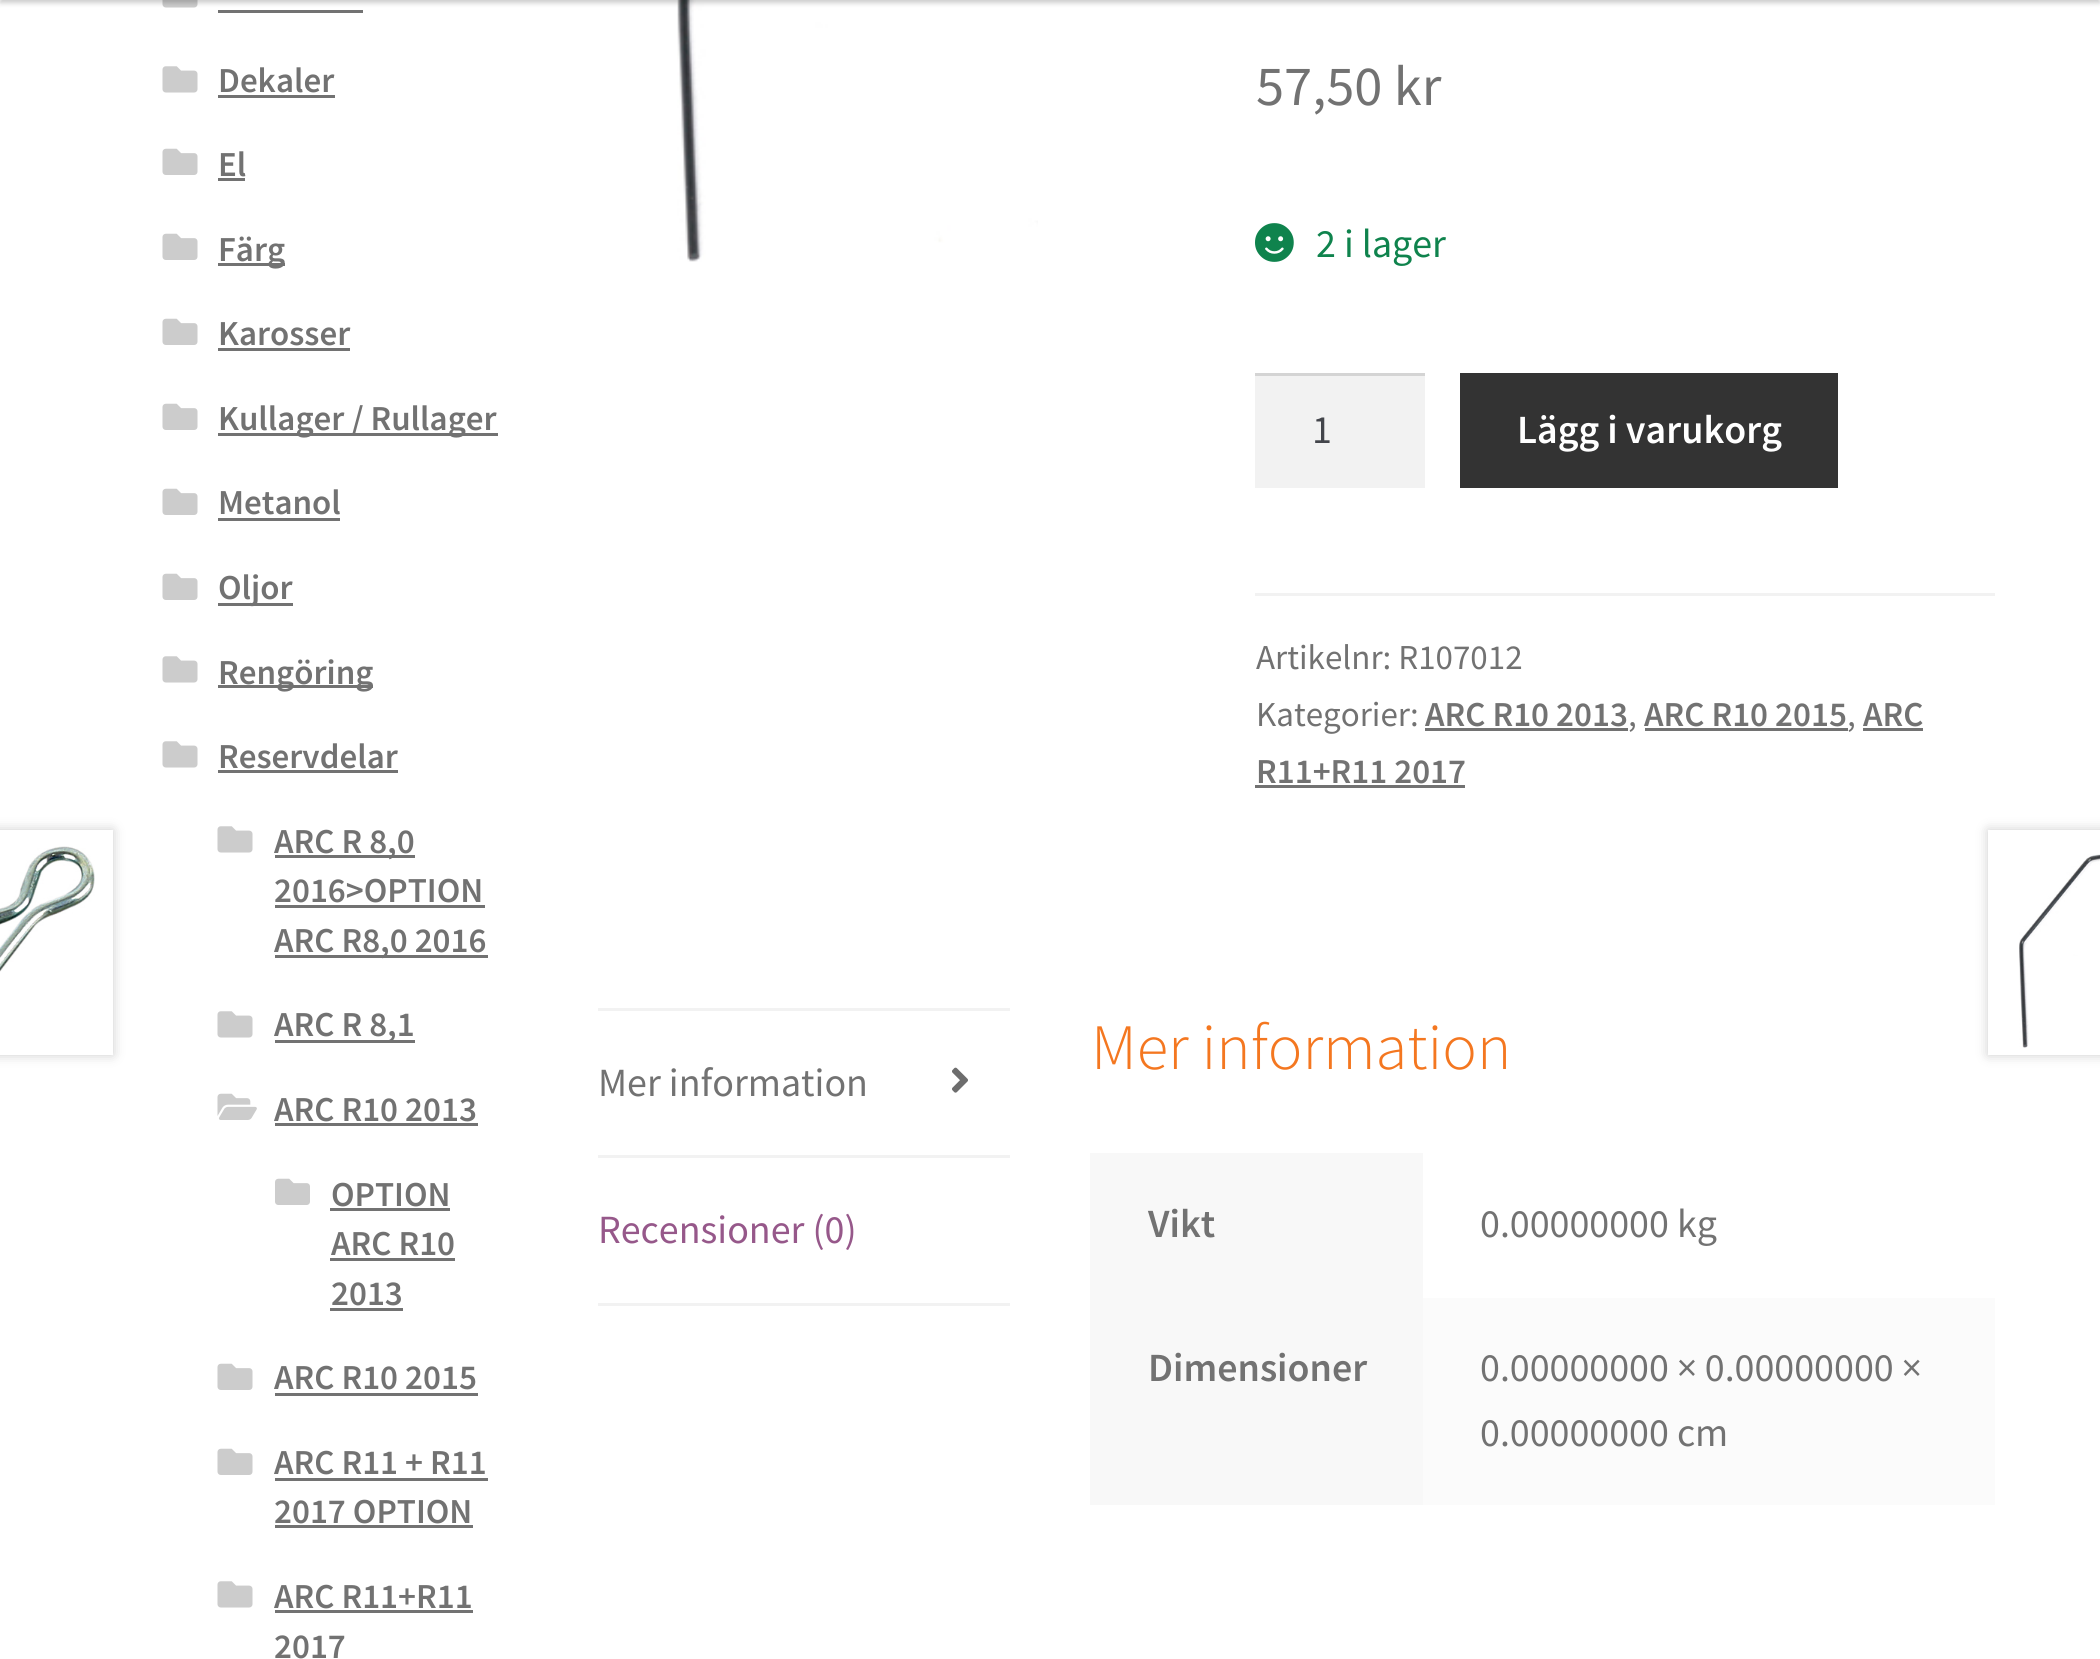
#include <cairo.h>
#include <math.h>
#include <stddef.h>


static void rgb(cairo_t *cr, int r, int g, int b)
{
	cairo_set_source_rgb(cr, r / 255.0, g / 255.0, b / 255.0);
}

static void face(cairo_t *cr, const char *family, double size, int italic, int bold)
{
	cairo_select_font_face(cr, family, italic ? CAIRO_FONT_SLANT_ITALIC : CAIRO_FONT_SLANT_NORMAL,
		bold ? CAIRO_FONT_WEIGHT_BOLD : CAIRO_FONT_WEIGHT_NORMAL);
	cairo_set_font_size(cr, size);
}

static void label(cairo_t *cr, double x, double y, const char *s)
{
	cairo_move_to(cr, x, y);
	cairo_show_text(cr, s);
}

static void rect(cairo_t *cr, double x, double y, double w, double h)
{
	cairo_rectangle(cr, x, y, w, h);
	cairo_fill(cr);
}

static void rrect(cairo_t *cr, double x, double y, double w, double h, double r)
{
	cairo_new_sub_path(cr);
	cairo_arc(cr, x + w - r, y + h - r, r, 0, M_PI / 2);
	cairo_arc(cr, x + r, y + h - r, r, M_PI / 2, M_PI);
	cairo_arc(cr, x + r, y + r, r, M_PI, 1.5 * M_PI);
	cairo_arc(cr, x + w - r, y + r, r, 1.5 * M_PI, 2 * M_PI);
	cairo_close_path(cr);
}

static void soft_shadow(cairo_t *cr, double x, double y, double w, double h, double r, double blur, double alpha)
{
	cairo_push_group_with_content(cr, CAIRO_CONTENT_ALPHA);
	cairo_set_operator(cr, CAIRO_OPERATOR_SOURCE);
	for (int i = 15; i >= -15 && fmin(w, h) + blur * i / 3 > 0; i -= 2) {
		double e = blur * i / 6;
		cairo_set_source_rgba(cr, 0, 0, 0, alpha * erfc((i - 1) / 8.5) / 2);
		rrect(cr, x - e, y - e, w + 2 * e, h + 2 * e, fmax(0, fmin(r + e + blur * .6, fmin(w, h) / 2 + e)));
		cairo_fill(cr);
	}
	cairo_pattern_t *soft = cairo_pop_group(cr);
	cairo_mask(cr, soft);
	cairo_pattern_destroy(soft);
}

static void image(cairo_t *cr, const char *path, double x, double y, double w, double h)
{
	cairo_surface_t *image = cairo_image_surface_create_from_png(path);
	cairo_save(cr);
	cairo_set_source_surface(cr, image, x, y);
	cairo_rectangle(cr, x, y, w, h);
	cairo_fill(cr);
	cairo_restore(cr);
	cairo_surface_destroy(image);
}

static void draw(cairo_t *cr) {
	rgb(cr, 255, 255, 255);
	cairo_paint(cr);
	image(cr, "image0.png", 162, 0, 36, 8);
	rgb(cr, 114, 114, 114);
	rect(cr, 218, 10, 145, 3);
	image(cr, "image5.png", 677, 0, 361, 262);
	rgb(cr, 0, 0, 0);
	soft_shadow(cr, 0, -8, 2100, 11, 0, 2.5, 0.2);
	image(cr, "image1.png", 162, 66, 36, 27);
	face(cr, "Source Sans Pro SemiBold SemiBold", 35, 0, 0);
	rgb(cr, 114, 114, 114);
	label(cr, 218, 92, "Dekaler");
	rect(cr, 218, 95, 117, 3);
	image(cr, "image2.png", 162, 148, 36, 27);
	label(cr, 218, 176, "El");
	rect(cr, 218, 178, 27, 3);
	image(cr, "image2.png", 162, 233, 36, 27);
	rect(cr, 218, 263, 67, 3);
	label(cr, 218, 261, "Färg");
	image(cr, "image2.png", 162, 318, 36, 27);
	label(cr, 218, 345, "Karosser");
	rect(cr, 218, 348, 132, 3);
	image(cr, "image2.png", 162, 403, 36, 27);
	rect(cr, 218, 433, 280, 3);
	label(cr, 218, 430, "Kullager / Rullager");
	image(cr, "image2.png", 162, 488, 36, 27);
	label(cr, 218, 514, "Metanol");
	rect(cr, 218, 518, 122, 3);
	image(cr, "image2.png", 162, 573, 36, 27);
	rect(cr, 218, 603, 75, 3);
	label(cr, 218, 599, "Oljor");
	image(cr, "image1.png", 162, 656, 36, 27);
	rect(cr, 218, 685, 155, 3);
	label(cr, 218, 684, "Rengöring");
	image(cr, "image1.png", 162, 741, 36, 27);
	label(cr, 218, 768, "Reservdelar");
	rect(cr, 218, 770, 180, 3);
	image(cr, "image1.png", 217, 826, 36, 27);
	rect(cr, 275, 855, 140, 3);
	label(cr, 274, 853, "ARC R 8,0");
	label(cr, 274, 902, "2016>OPTION");
	rect(cr, 275, 905, 210, 3);
	rect(cr, 275, 955, 213, 3);
	label(cr, 274, 952, "ARC R8,0 2016");
	image(cr, "image1.png", 217, 1011, 36, 27);
	rect(cr, 275, 1040, 140, 3);
	label(cr, 274, 1036, "ARC R 8,1");
	image(cr, "image3.png", 217, 1093, 40, 27);
	label(cr, 274, 1121, "ARC R10 2013");
	rect(cr, 275, 1123, 203, 3);
	image(cr, "image4.png", 275, 1178, 35, 27);
	label(cr, 331, 1206, "OPTION");
	rect(cr, 330, 1208, 120, 3);
	label(cr, 331, 1255, "ARC R10");
	rect(cr, 330, 1258, 125, 3);
	label(cr, 331, 1305, "2013");
	rect(cr, 330, 1308, 73, 3);
	image(cr, "image2.png", 217, 1363, 36, 27);
	label(cr, 274, 1389, "ARC R10 2015");
	rect(cr, 275, 1393, 203, 3);
	image(cr, "image2.png", 217, 1448, 36, 27);
	label(cr, 274, 1474, "ARC R11 + R11");
	rect(cr, 275, 1478, 213, 3);
	label(cr, 274, 1523, "2017 OPTION");
	rect(cr, 275, 1525, 198, 3);
	image(cr, "image1.png", 217, 1581, 36, 27);
	label(cr, 274, 1608, "ARC R11+R11");
	rect(cr, 275, 1610, 198, 3);
	label(cr, 274, 1658, "2017");
	face(cr, "Source Sans Pro", 56.5, 0, 0);
	label(cr, 1256, 105, "57,50 kr");
	image(cr, "image6.png", 1255, 223, 39, 39);
	face(cr, "Source Sans Pro", 40, 0, 0);
	rgb(cr, 15, 131, 77);
	label(cr, 1316, 257, "2 i lager");
	rgb(cr, 242, 242, 242);
	rect(cr, 1255, 376, 170, 112);
	rgb(cr, 212, 212, 212);
	rect(cr, 1255, 373, 170, 3);
	rgb(cr, 67, 69, 75);
	label(cr, 1312, 443, "1");
	rgb(cr, 51, 51, 51);
	rect(cr, 1460, 373, 378, 115);
	face(cr, "Source Sans Pro SemiBold SemiBold", 40, 0, 0);
	rgb(cr, 255, 255, 255);
	label(cr, 1517, 443, "Lägg i varukorg");
	rgb(cr, 242, 242, 242);
	rect(cr, 1255, 593, 740, 3);
	face(cr, "Source Sans Pro", 35, 0, 0);
	rgb(cr, 114, 114, 114);
	label(cr, 1256, 669, "Artikelnr: R107012");
	label(cr, 1256, 726, "Kategorier:");
	face(cr, "Source Sans Pro SemiBold SemiBold", 35, 0, 0);
	label(cr, 1425, 726, "ARC R10 2013");
	rect(cr, 1425, 728, 203, 3);
	face(cr, "Source Sans Pro", 35, 0, 0);
	label(cr, 1628, 726, ",");
	face(cr, "Source Sans Pro SemiBold SemiBold", 35, 0, 0);
	label(cr, 1644, 726, "ARC R10 2015");
	rect(cr, 1645, 728, 203, 3);
	face(cr, "Source Sans Pro", 35, 0, 0);
	label(cr, 1847, 726, ",");
	face(cr, "Source Sans Pro SemiBold SemiBold", 35, 0, 0);
	label(cr, 1863, 726, "ARC");
	rect(cr, 1863, 728, 60, 3);
	label(cr, 1256, 783, "R11+R11 2017");
	rect(cr, 1255, 785, 210, 3);
	rgb(cr, 0, 0, 0);
	soft_shadow(cr, -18, 830, 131, 225, 0, 6, 0.2);
	rgb(cr, 255, 255, 255);
	rect(cr, 0, 830, 113, 225);
	image(cr, "image7.png", 0, 846, 95, 126);
	cairo_save(cr);
	cairo_set_fill_rule(cr, CAIRO_FILL_RULE_EVEN_ODD);
	cairo_new_path(cr);
	cairo_move_to(cr, 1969, 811);
	cairo_line_to(cr, 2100, 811);
	cairo_line_to(cr, 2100, 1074);
	cairo_line_to(cr, 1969, 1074);
	cairo_close_path(cr);
	cairo_move_to(cr, 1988, 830);
	cairo_line_to(cr, 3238, 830);
	cairo_line_to(cr, 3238, 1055);
	cairo_line_to(cr, 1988, 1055);
	cairo_close_path(cr);
	cairo_clip(cr);
	rgb(cr, 0, 0, 0);
	soft_shadow(cr, 1988, 830, 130, 225, 0, 6, 0.2);
	cairo_restore(cr);
	image(cr, "image8.png", 2019, 854, 81, 194);
	rgb(cr, 242, 242, 242);
	rect(cr, 598, 1008, 412, 3);
	rect(cr, 598, 1155, 412, 3);
	face(cr, "Source Sans Pro", 40, 0, 0);
	rgb(cr, 114, 114, 114);
	label(cr, 598, 1096, "Mer information");
	image(cr, "image9.png", 952, 1067, 16, 26);
	rgb(cr, 242, 242, 242);
	rect(cr, 598, 1303, 412, 3);
	rgb(cr, 150, 88, 138);
	label(cr, 598, 1243, "Recensioner (0)");
	face(cr, "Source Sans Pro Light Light", 64.75, 0, 0);
	rgb(cr, 244, 119, 32);
	label(cr, 1091, 1069, "Mer information");
	rgb(cr, 248, 248, 248);
	rect(cr, 1090, 1153, 333, 352);
	face(cr, "Source Sans Pro SemiBold SemiBold", 40, 0, 0);
	rgb(cr, 114, 114, 114);
	label(cr, 1148, 1237, "Vikt");
	face(cr, "Source Sans Pro", 40, 0, 0);
	label(cr, 1480, 1237, "0.00000000 kg");
	face(cr, "Source Sans Pro SemiBold SemiBold", 40, 0, 0);
	label(cr, 1148, 1381, "Dimensioner");
	rgb(cr, 251, 251, 251);
	rect(cr, 1423, 1298, 572, 207);
	face(cr, "Source Sans Pro", 40, 0, 0);
	rgb(cr, 114, 114, 114);
	label(cr, 1480, 1381, "0.00000000 × 0.00000000 ×");
	label(cr, 1480, 1446, "0.00000000 cm");
}

int main(void) {
	cairo_surface_t *surface = cairo_image_surface_create(CAIRO_FORMAT_RGB24, 2100, 1659);
	cairo_t *cr = cairo_create(surface);
	cairo_font_options_t *options = cairo_font_options_create();
	cairo_font_options_set_hint_metrics(options, CAIRO_HINT_METRICS_OFF);
	cairo_font_options_set_hint_style(options, CAIRO_HINT_STYLE_NONE);
	cairo_set_font_options(cr, options);
	cairo_set_miter_limit(cr, 4);
	draw(cr);
	cairo_surface_write_to_png(surface, "render.png");
	cairo_font_options_destroy(options);
	cairo_destroy(cr);
	cairo_surface_destroy(surface);
	return 0;
}
